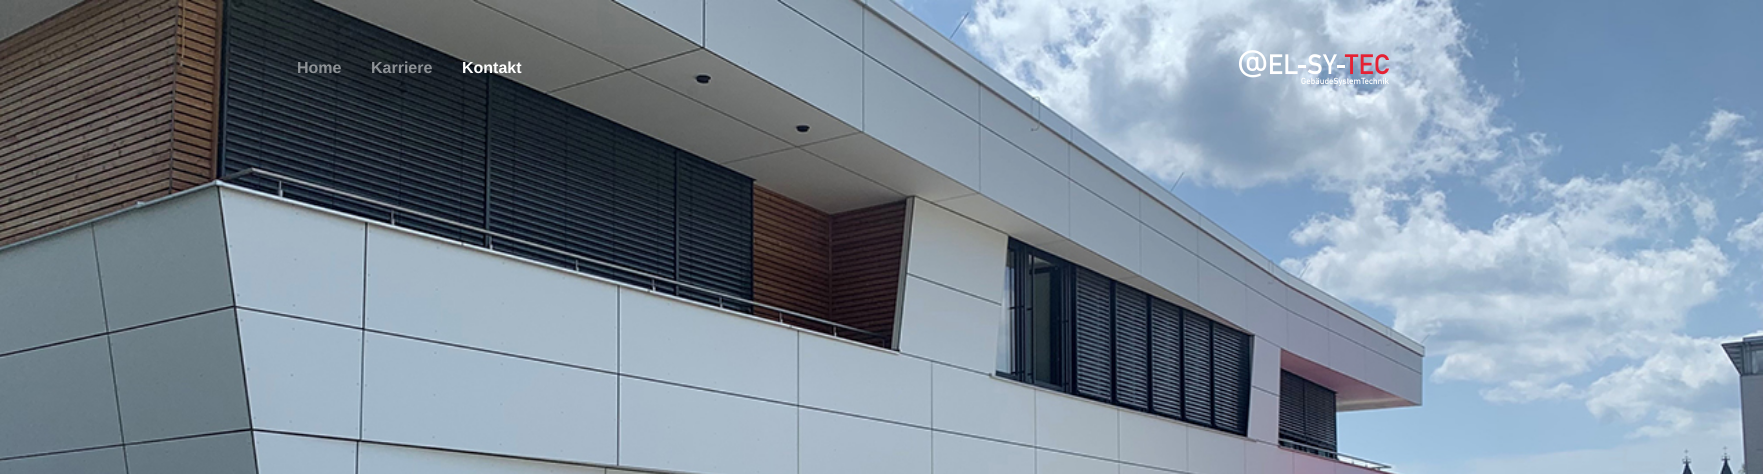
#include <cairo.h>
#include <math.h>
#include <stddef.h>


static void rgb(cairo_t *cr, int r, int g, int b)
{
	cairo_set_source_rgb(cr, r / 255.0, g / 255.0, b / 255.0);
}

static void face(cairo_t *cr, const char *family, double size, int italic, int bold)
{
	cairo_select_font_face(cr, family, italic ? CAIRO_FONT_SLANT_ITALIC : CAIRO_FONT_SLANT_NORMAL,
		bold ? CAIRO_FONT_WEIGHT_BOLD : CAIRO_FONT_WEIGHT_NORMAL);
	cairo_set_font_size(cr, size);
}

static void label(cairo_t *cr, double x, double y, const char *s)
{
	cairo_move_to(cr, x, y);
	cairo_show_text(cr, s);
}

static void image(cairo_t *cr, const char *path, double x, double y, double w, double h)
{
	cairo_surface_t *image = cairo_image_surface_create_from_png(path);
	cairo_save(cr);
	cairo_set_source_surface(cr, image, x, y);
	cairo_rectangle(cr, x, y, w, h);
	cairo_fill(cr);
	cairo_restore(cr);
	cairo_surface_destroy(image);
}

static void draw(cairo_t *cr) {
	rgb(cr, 255, 255, 255);
	cairo_paint(cr);
	image(cr, "image0.png", 0, 0, 1763, 474);
	face(cr, "Liberation Sans", 16, 0, 1);
	rgb(cr, 142, 146, 150);
	label(cr, 297, 73, "Home");
	label(cr, 371, 73, "Karriere");
	rgb(cr, 255, 255, 255);
	label(cr, 462, 73, "Kontakt");
	image(cr, "image1.png", 1239, 50, 150, 36);
}

int main(void) {
	cairo_surface_t *surface = cairo_image_surface_create(CAIRO_FORMAT_RGB24, 1763, 474);
	cairo_t *cr = cairo_create(surface);
	cairo_font_options_t *options = cairo_font_options_create();
	cairo_font_options_set_hint_metrics(options, CAIRO_HINT_METRICS_OFF);
	cairo_font_options_set_hint_style(options, CAIRO_HINT_STYLE_NONE);
	cairo_set_font_options(cr, options);
	cairo_set_miter_limit(cr, 4);
	draw(cr);
	cairo_surface_write_to_png(surface, "render.png");
	cairo_font_options_destroy(options);
	cairo_destroy(cr);
	cairo_surface_destroy(surface);
	return 0;
}
